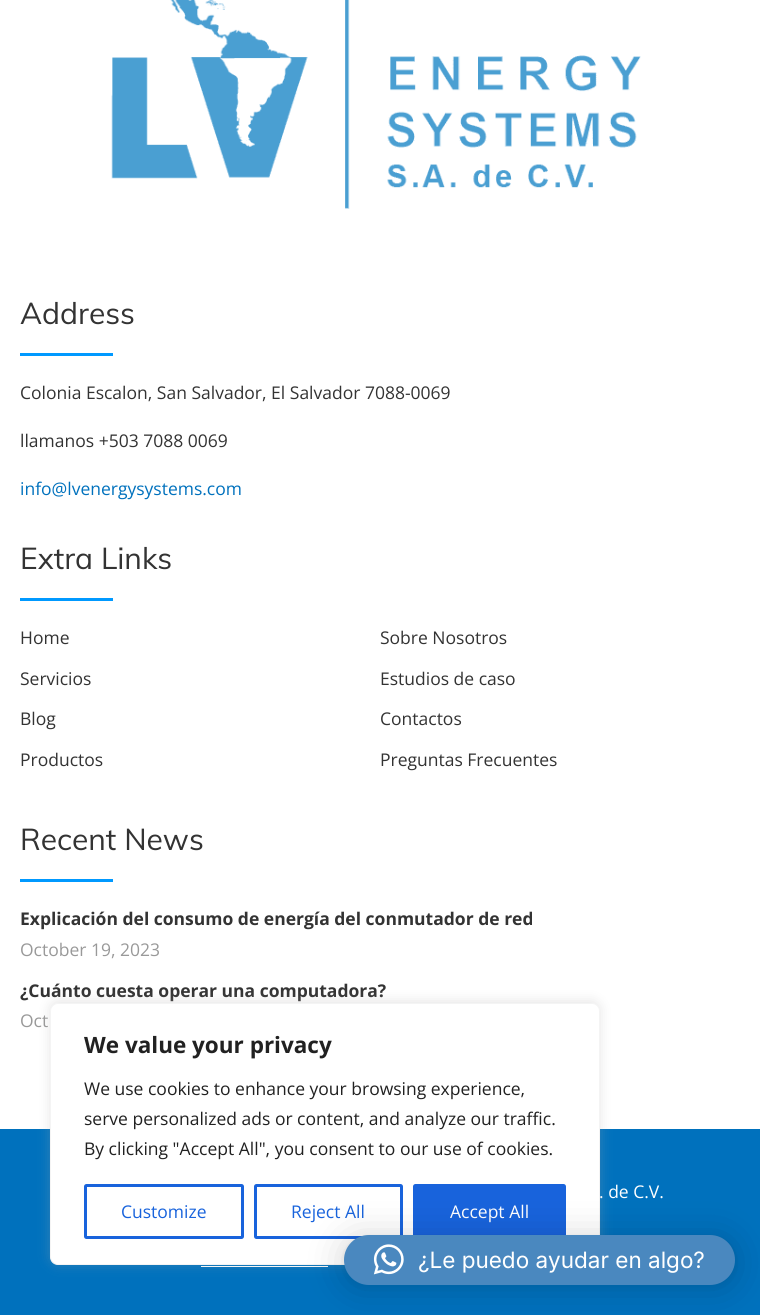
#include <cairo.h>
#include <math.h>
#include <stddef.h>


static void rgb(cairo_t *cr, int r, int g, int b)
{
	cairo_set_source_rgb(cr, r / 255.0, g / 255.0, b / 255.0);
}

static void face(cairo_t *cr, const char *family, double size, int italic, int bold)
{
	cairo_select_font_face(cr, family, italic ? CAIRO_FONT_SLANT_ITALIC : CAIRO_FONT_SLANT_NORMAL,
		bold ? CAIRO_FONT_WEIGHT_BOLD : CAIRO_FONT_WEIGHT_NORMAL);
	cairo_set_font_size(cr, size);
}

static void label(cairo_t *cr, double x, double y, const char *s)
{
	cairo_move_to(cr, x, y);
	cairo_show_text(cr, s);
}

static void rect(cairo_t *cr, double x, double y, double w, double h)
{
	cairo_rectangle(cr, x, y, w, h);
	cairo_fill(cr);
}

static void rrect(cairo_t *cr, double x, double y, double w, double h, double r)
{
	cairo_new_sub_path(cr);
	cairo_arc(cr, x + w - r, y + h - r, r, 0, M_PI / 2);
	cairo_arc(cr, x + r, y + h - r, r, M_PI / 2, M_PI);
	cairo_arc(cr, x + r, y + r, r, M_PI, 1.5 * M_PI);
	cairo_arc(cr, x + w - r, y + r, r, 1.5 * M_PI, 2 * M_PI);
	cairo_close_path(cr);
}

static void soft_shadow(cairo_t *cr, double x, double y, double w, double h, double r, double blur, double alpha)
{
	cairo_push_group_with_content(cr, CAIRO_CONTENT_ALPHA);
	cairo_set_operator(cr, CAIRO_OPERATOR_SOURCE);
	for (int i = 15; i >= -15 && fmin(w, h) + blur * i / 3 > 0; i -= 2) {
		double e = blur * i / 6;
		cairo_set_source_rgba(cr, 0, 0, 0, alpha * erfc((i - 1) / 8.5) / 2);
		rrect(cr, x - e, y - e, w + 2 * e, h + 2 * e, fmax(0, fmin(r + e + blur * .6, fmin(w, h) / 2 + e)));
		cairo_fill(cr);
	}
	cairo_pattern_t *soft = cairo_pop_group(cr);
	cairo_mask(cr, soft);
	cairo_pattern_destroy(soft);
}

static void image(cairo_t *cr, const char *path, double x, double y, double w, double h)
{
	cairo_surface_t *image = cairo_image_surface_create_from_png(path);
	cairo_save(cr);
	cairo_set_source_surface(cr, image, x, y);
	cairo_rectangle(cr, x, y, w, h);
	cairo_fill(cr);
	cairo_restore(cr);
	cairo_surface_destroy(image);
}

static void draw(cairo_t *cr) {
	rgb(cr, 255, 255, 255);
	cairo_paint(cr);
	image(cr, "image0.png", 111, 0, 530, 209);
	face(cr, "Muli", 30, 0, 0);
	rgb(cr, 51, 51, 51);
	label(cr, 20, 324, "Address");
	rgb(cr, 0, 153, 255);
	rect(cr, 20, 353, 93, 3);
	face(cr, "Open Sans", 17.5, 0, 0);
	rgb(cr, 51, 51, 51);
	label(cr, 20, 399, "Colonia Escalon, San Salvador, El Salvador 7088-0069");
	label(cr, 20, 447, "llamanos +503 7088 0069");
	rgb(cr, 0, 113, 189);
	label(cr, 20, 495, "info@lvenergysystems.com");
	face(cr, "Muli", 30, 0, 0);
	rgb(cr, 51, 51, 51);
	label(cr, 20, 569, "Extra Links");
	rgb(cr, 0, 153, 255);
	rect(cr, 20, 598, 93, 3);
	face(cr, "Open Sans", 17.5, 0, 0);
	rgb(cr, 51, 51, 51);
	label(cr, 20, 644, "Home");
	label(cr, 380, 644, "Sobre Nosotros");
	label(cr, 20, 685, "Servicios");
	label(cr, 380, 685, "Estudios de caso");
	label(cr, 20, 725, "Blog");
	label(cr, 380, 725, "Contactos");
	label(cr, 20, 766, "Productos");
	label(cr, 380, 766, "Preguntas Frecuentes");
	face(cr, "Muli", 30, 0, 0);
	label(cr, 20, 850, "Recent News");
	rgb(cr, 0, 153, 255);
	rect(cr, 20, 879, 93, 3);
	face(cr, "Open Sans", 17.5, 0, 1);
	rgb(cr, 51, 51, 51);
	label(cr, 20, 925, "Explicación del consumo de energía del conmutador de red");
	face(cr, "Open Sans", 17.5, 0, 0);
	rgb(cr, 153, 153, 153);
	label(cr, 20, 956, "October 19, 2023");
	face(cr, "Open Sans", 17.5, 0, 1);
	rgb(cr, 51, 51, 51);
	label(cr, 20, 997, "¿Cuánto cuesta operar una computadora?");
	face(cr, "Open Sans", 17.5, 0, 0);
	rgb(cr, 153, 153, 153);
	label(cr, 20, 1027, "Oct");
	rgb(cr, 0, 113, 189);
	rect(cr, 0, 1129, 760, 186);
	rgb(cr, 255, 255, 255);
	label(cr, 599, 1198, ". de C.V.");
	rect(cr, 201, 1266, 127, 1);
	rgb(cr, 172, 171, 171);
	soft_shadow(cr, 50, 1001, 550, 263, 8, 6, 0.3);
	rgb(cr, 255, 255, 255);
	rrect(cr, 50.5, 1003.5, 549, 261, 7.5);
	cairo_fill_preserve(cr);
	rgb(cr, 244, 244, 244);
	cairo_set_line_width(cr, 1);
	cairo_stroke(cr);
	face(cr, "Open Sans", 22.5, 0, 1);
	rgb(cr, 33, 33, 33);
	label(cr, 84, 1053, "We value your privacy");
	face(cr, "Open Sans", 17.5, 0, 0);
	label(cr, 84, 1095, "We use cookies to enhance your browsing experience,");
	label(cr, 84, 1125, "serve personalized ads or content, and analyze our traffic.");
	label(cr, 84, 1155, "By clicking \"Accept All\", you consent to our use of cookies.");
	rrect(cr, 85.5, 1185.5, 157, 52, 1);
	rgb(cr, 24, 99, 220);
	cairo_set_line_width(cr, 3);
	cairo_stroke(cr);
	label(cr, 121, 1218, "Customize");
	rrect(cr, 255.5, 1185.5, 146, 52, 1);
	cairo_stroke(cr);
	label(cr, 291, 1218, "Reject All");
	rrect(cr, 414.5, 1185.5, 150, 52, 1);
	cairo_fill_preserve(cr);
	cairo_stroke(cr);
	rgb(cr, 255, 255, 255);
	label(cr, 450, 1218, "Accept All");
	rgb(cr, 0, 0, 0);
	soft_shadow(cr, 344, 1238, 391, 50, 25, 20, 0.16);
	soft_shadow(cr, 344, 1236, 391, 50, 25, 4, 0.06);
	rgb(cr, 74, 136, 191);
	rrect(cr, 344, 1235, 391, 50, 25);
	cairo_fill(cr);
	image(cr, "image1.png", 373, 1244, 31, 31);
	face(cr, "Inter", 22.5, 0, 0);
	rgb(cr, 255, 255, 255);
	label(cr, 418, 1268, "¿Le puedo ayudar en algo?");
}

int main(void) {
	cairo_surface_t *surface = cairo_image_surface_create(CAIRO_FORMAT_RGB24, 760, 1315);
	cairo_t *cr = cairo_create(surface);
	cairo_font_options_t *options = cairo_font_options_create();
	cairo_font_options_set_hint_metrics(options, CAIRO_HINT_METRICS_OFF);
	cairo_font_options_set_hint_style(options, CAIRO_HINT_STYLE_NONE);
	cairo_set_font_options(cr, options);
	cairo_set_miter_limit(cr, 4);
	draw(cr);
	cairo_surface_write_to_png(surface, "render.png");
	cairo_font_options_destroy(options);
	cairo_destroy(cr);
	cairo_surface_destroy(surface);
	return 0;
}
